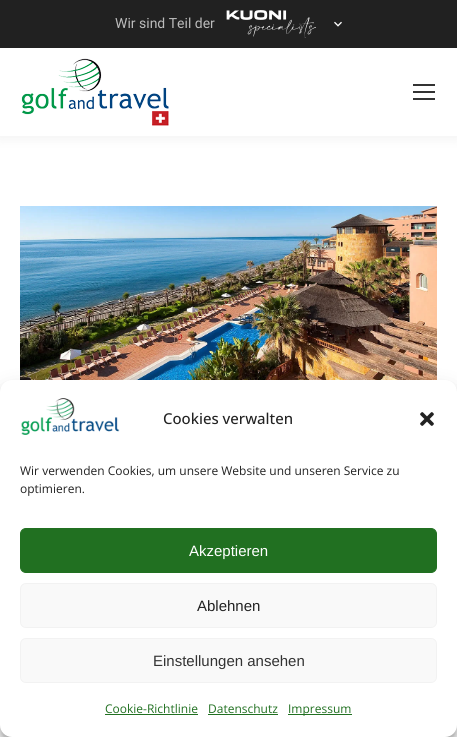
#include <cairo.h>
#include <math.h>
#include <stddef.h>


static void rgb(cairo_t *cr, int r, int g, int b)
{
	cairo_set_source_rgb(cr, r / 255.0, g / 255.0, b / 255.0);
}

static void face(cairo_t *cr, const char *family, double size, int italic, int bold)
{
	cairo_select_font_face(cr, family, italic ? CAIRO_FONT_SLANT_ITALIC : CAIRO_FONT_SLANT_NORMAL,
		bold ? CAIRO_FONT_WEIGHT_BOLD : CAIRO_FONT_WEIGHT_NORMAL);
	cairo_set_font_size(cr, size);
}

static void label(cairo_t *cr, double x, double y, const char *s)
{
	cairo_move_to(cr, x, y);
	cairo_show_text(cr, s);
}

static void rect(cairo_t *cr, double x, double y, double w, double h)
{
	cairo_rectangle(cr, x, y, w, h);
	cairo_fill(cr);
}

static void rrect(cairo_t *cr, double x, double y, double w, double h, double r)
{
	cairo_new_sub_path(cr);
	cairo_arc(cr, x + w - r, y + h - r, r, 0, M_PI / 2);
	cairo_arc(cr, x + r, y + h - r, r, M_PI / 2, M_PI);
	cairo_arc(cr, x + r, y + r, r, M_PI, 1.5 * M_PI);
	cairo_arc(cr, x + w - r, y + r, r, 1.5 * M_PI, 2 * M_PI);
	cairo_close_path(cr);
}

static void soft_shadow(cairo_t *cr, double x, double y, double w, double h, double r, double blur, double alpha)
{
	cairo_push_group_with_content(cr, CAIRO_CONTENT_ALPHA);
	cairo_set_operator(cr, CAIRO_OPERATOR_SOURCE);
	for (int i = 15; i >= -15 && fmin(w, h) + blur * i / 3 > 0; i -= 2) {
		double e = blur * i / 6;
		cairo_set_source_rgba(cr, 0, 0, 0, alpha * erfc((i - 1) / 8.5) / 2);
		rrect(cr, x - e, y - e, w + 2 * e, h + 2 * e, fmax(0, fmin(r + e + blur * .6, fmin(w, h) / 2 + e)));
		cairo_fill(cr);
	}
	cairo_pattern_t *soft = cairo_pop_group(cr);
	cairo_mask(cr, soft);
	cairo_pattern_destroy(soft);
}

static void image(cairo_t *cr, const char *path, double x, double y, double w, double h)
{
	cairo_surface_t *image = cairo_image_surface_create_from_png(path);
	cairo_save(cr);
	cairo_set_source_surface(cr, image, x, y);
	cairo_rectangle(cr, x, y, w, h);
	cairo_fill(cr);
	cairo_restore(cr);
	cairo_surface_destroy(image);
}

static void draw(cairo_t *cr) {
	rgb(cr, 255, 255, 255);
	cairo_paint(cr);
	rgb(cr, 0, 0, 0);
	soft_shadow(cr, -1, 47, 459, 90, 0, 7.5, 0.07);
	rgb(cr, 33, 33, 33);
	rect(cr, 0, 0, 457, 48);
	face(cr, "Roboto", 14, 0, 0);
	rgb(cr, 188, 188, 188);
	label(cr, 115, 28, "Wir sind Teil der");
	image(cr, "image0.png", 226, 10, 90, 28);
	image(cr, "image1.png", 334, 21, 8, 6);
	rgb(cr, 255, 255, 255);
	rect(cr, 0, 48, 457, 88);
	image(cr, "image2.png", 21, 58, 148, 68);
	rgb(cr, 51, 51, 51);
	rect(cr, 413, 84, 22, 2);
	rect(cr, 413, 91, 22, 2);
	rect(cr, 413, 98, 22, 2);
	image(cr, "image3.png", 20, 206, 417, 174);
	rgb(cr, 0, 0, 0);
	soft_shadow(cr, 0, 386, 457, 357, 12, 3, 0.23);
	soft_shadow(cr, 0, 390, 457, 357, 12, 10, 0.19);
	rgb(cr, 255, 255, 255);
	rrect(cr, 0, 380, 457, 357, 12);
	cairo_fill(cr);
	image(cr, "image4.png", 21, 398, 99, 37);
	face(cr, "Open Sans Medium", 15, 0, 0);
	rgb(cr, 34, 34, 34);
	label(cr, 163, 424, "Cookies verwalten");
	image(cr, "image5.png", 420, 412, 14, 14);
	face(cr, "Open Sans", 12, 0, 0);
	label(cr, 20, 475, "Wir verwenden Cookies, um unsere Website und unseren Service zu");
	label(cr, 20, 493, "optimieren.");
	rgb(cr, 33, 112, 33);
	rrect(cr, 20.5, 528.5, 416, 44, 5.5);
	cairo_fill_preserve(cr);
	cairo_set_line_width(cr, 1);
	cairo_stroke(cr);
	face(cr, "Liberation Sans", 15, 0, 0);
	rgb(cr, 255, 255, 255);
	label(cr, 189, 556, "Akzeptieren");
	rgb(cr, 249, 249, 249);
	rrect(cr, 20.5, 583.5, 416, 44, 5.5);
	cairo_fill_preserve(cr);
	rgb(cr, 242, 242, 242);
	cairo_stroke(cr);
	rgb(cr, 34, 34, 34);
	label(cr, 197, 611, "Ablehnen");
	rgb(cr, 249, 249, 249);
	rrect(cr, 20.5, 638.5, 416, 44, 5.5);
	cairo_fill_preserve(cr);
	rgb(cr, 242, 242, 242);
	cairo_stroke(cr);
	rgb(cr, 51, 51, 51);
	label(cr, 153, 666, "Einstellungen ansehen");
	face(cr, "Open Sans", 12, 0, 0);
	rgb(cr, 33, 112, 33);
	label(cr, 105, 713, "Cookie-Richtlinie");
	rect(cr, 105, 714, 93, 1);
	label(cr, 208, 713, "Datenschutz");
	rect(cr, 208, 714, 70, 1);
	rect(cr, 288, 714, 64, 1);
	label(cr, 288, 713, "Impressum");
}

int main(void) {
	cairo_surface_t *surface = cairo_image_surface_create(CAIRO_FORMAT_RGB24, 457, 737);
	cairo_t *cr = cairo_create(surface);
	cairo_font_options_t *options = cairo_font_options_create();
	cairo_font_options_set_hint_metrics(options, CAIRO_HINT_METRICS_OFF);
	cairo_font_options_set_hint_style(options, CAIRO_HINT_STYLE_NONE);
	cairo_set_font_options(cr, options);
	cairo_set_miter_limit(cr, 4);
	draw(cr);
	cairo_surface_write_to_png(surface, "render.png");
	cairo_font_options_destroy(options);
	cairo_destroy(cr);
	cairo_surface_destroy(surface);
	return 0;
}
